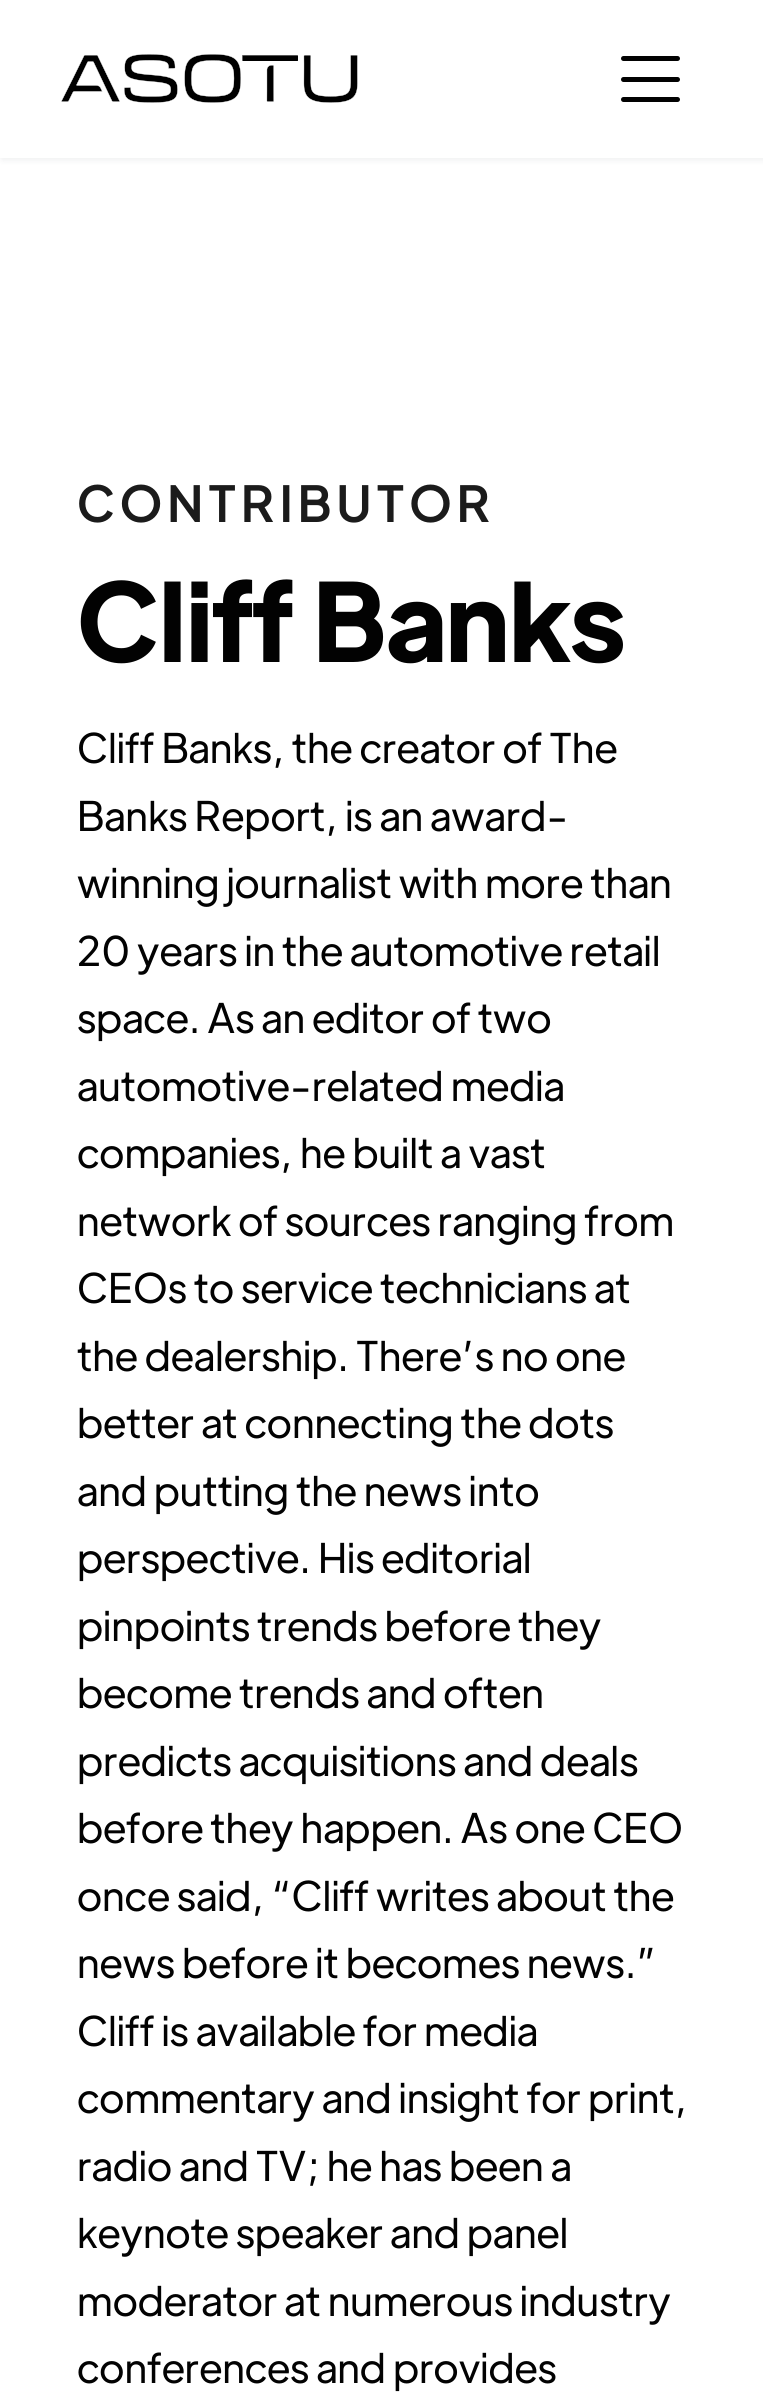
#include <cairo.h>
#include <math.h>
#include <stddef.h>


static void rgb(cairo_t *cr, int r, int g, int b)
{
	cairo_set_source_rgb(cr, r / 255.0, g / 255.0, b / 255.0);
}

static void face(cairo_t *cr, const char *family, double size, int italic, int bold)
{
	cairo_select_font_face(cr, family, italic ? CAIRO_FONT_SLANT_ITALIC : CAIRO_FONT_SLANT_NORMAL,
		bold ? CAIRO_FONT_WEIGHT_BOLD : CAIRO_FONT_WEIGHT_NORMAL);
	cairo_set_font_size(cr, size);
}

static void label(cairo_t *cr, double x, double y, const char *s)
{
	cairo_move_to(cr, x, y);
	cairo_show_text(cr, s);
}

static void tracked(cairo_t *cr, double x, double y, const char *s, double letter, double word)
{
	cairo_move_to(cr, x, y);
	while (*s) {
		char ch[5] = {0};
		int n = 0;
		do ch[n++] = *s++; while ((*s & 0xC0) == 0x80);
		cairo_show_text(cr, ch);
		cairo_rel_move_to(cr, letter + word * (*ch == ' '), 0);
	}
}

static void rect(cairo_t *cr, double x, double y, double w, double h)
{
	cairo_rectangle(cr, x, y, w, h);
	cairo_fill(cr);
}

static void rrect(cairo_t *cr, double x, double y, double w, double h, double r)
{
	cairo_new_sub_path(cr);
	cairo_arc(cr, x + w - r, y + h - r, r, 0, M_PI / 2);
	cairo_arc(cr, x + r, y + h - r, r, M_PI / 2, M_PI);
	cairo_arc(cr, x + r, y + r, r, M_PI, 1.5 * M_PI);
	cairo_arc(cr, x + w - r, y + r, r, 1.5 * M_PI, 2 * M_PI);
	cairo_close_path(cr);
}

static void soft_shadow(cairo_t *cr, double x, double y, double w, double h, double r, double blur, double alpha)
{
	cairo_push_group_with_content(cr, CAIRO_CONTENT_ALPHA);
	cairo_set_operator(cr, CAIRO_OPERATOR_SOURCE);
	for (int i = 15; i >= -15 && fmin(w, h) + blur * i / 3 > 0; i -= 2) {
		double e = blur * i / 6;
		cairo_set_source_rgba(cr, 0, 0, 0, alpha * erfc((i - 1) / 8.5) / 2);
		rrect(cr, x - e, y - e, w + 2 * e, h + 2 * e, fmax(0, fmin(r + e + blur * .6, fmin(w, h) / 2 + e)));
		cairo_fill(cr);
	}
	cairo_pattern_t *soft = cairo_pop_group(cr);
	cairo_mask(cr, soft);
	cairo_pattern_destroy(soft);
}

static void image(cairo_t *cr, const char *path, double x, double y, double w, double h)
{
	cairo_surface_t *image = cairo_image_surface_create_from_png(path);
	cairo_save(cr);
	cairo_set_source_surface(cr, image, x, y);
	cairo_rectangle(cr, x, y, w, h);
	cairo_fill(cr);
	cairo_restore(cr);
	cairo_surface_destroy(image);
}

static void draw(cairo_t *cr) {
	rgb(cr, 255, 255, 255);
	cairo_paint(cr);
	rgb(cr, 36, 50, 66);
	soft_shadow(cr, 2, 2, 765, 158, 0, 3.5, 0.08);
	rgb(cr, 255, 255, 255);
	rect(cr, 0, 0, 763, 158);
	image(cr, "image0.png", 61, 54, 297, 49);
	rgb(cr, 2, 2, 2);
	rrect(cr, 621, 56, 59, 5, 2.5);
	cairo_fill(cr);
	rrect(cr, 621, 77, 59, 5, 2.5);
	cairo_fill(cr);
	rrect(cr, 621, 97, 59, 5, 2.5);
	cairo_fill(cr);
	face(cr, "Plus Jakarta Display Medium", 49.5, 0, 0);
	rgb(cr, 27, 27, 27);
	tracked(cr, 77, 522, "CONTRIBUTOR", 5, 0);
	face(cr, "Plus Jakarta Display", 108, 0, 1);
	rgb(cr, 2, 2, 2);
	label(cr, 77, 662, "Cliff Banks");
	face(cr, "Plus Jakarta Display", 40.5, 0, 0);
	label(cr, 77, 763, "Cliff Banks, the creator of The");
	label(cr, 77, 831, "Banks Report, is an award-");
	label(cr, 77, 898, "winning journalist with more than");
	label(cr, 77, 966, "20 years in the automotive retail");
	label(cr, 77, 1033, "space. As an editor of two");
	label(cr, 77, 1101, "automotive-related media");
	label(cr, 77, 1168, "companies, he built a vast");
	label(cr, 77, 1236, "network of sources ranging from");
	label(cr, 77, 1303, "CEOs to service technicians at");
	label(cr, 77, 1371, "the dealership. There’s no one");
	label(cr, 77, 1438, "better at connecting the dots");
	label(cr, 77, 1506, "and putting the news into");
	label(cr, 77, 1573, "perspective. His editorial");
	label(cr, 77, 1641, "pinpoints trends before they");
	label(cr, 77, 1708, "become trends and often");
	label(cr, 77, 1776, "predicts acquisitions and deals");
	label(cr, 77, 1843, "before they happen. As one CEO");
	label(cr, 77, 1911, "once said, “Cliff writes about the");
	label(cr, 77, 1978, "news before it becomes news.”");
	label(cr, 77, 2046, "Cliff is available for media");
	label(cr, 77, 2113, "commentary and insight for print,");
	label(cr, 77, 2181, "radio and TV; he has been a");
	label(cr, 77, 2248, "keynote speaker and panel");
	label(cr, 77, 2316, "moderator at numerous industry");
	label(cr, 77, 2383, "conferences and provides");
}

int main(void) {
	cairo_surface_t *surface = cairo_image_surface_create(CAIRO_FORMAT_RGB24, 763, 2393);
	cairo_t *cr = cairo_create(surface);
	cairo_font_options_t *options = cairo_font_options_create();
	cairo_font_options_set_hint_metrics(options, CAIRO_HINT_METRICS_OFF);
	cairo_font_options_set_hint_style(options, CAIRO_HINT_STYLE_NONE);
	cairo_set_font_options(cr, options);
	cairo_set_miter_limit(cr, 4);
	draw(cr);
	cairo_surface_write_to_png(surface, "render.png");
	cairo_font_options_destroy(options);
	cairo_destroy(cr);
	cairo_surface_destroy(surface);
	return 0;
}
